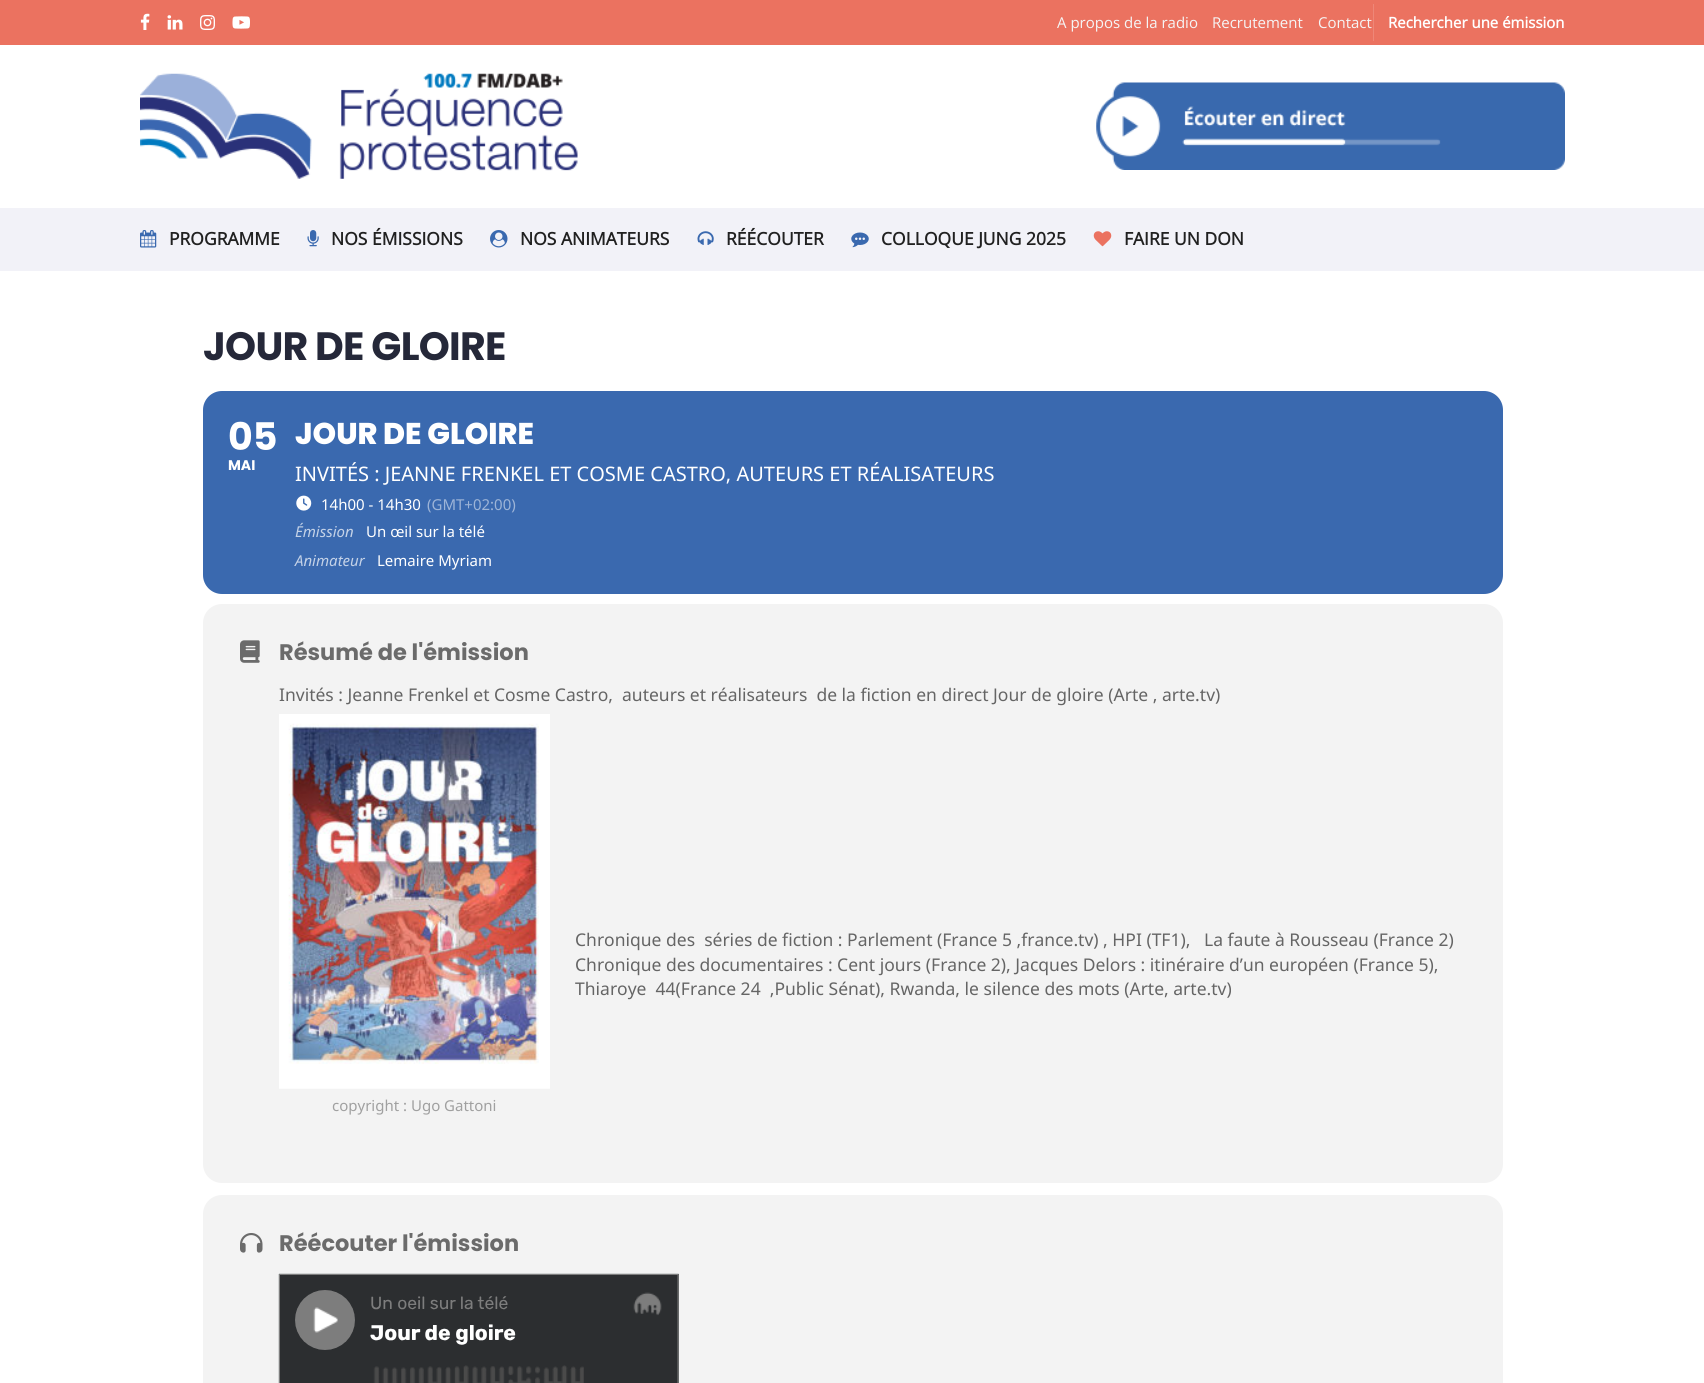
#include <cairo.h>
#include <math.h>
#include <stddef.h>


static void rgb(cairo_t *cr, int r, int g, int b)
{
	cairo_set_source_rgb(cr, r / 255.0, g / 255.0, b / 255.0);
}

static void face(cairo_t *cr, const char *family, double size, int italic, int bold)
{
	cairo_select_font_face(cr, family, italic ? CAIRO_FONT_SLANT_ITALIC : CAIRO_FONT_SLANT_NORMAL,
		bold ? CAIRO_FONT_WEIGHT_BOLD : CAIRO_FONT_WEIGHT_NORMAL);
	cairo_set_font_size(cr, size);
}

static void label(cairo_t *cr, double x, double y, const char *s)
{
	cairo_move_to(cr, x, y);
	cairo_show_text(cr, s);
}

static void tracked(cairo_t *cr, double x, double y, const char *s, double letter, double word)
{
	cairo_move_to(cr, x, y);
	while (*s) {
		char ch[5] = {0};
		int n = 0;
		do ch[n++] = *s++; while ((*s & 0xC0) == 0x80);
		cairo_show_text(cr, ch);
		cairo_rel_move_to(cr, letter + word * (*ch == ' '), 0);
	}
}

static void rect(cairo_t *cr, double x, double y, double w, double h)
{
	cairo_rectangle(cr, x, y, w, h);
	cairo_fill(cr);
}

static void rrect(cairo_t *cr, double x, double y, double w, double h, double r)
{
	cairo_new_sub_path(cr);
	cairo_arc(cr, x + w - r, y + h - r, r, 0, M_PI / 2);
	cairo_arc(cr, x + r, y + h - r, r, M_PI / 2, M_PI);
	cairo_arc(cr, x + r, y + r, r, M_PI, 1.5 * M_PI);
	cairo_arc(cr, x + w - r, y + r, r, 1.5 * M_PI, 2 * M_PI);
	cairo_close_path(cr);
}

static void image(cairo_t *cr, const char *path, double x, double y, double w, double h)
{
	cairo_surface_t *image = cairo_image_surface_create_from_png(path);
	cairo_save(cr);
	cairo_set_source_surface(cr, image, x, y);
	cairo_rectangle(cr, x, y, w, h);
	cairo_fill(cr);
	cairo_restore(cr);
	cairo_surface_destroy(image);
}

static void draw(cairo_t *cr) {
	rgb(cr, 255, 255, 255);
	cairo_paint(cr);
	rgb(cr, 235, 114, 96);
	rect(cr, 0, 0, 1704, 45);
	image(cr, "image0.png", 140, 13, 10, 17);
	image(cr, "image1.png", 167, 15, 16, 15);
	image(cr, "image2.png", 200, 15, 15, 15);
	image(cr, "image3.png", 232, 16, 18, 13);
	face(cr, "Open Sans", 15, 0, 0);
	rgb(cr, 245, 245, 245);
	label(cr, 1057, 28, "A propos de la radio");
	label(cr, 1212, 28, "Recrutement");
	label(cr, 1318, 28, "Contact");
	rgb(cr, 238, 135, 120);
	rect(cr, 1373, 4, 1, 37);
	face(cr, "Open Sans", 15, 0, 1);
	rgb(cr, 255, 255, 255);
	label(cr, 1388, 28, "Rechercher une émission");
	image(cr, "image4.png", 140, 73, 438, 106);
	image(cr, "image5.png", 1096, 82, 469, 88);
	rgb(cr, 242, 242, 248);
	rect(cr, 0, 208, 1704, 63);
	image(cr, "image6.png", 140, 230, 17, 18);
	face(cr, "Open Sans", 17.5, 0, 1);
	rgb(cr, 33, 33, 33);
	label(cr, 169, 245, "PROGRAMME");
	image(cr, "image7.png", 307, 230, 12, 17);
	label(cr, 331, 245, "NOS ÉMISSIONS");
	image(cr, "image8.png", 490, 230, 18, 18);
	label(cr, 520, 245, "NOS ANIMATEURS");
	image(cr, "image9.png", 697, 231, 17, 14);
	label(cr, 726, 245, "RÉÉCOUTER");
	image(cr, "image10.png", 851, 232, 18, 16);
	label(cr, 881, 245, "COLLOQUE JUNG 2025");
	image(cr, "image11.png", 1093, 231, 19, 16);
	label(cr, 1124, 245, "FAIRE UN DON");
	face(cr, "Poppins", 39.5, 0, 1);
	rgb(cr, 37, 40, 57);
	tracked(cr, 203, 360, "JOUR DE GLOIRE", -0.75, 0);
	rgb(cr, 58, 105, 175);
	rrect(cr, 203, 391, 1300, 203, 19);
	cairo_fill(cr);
	face(cr, "Poppins", 38, 0, 1);
	rgb(cr, 255, 255, 255);
	label(cr, 228, 450, "05");
	face(cr, "Poppins", 14, 0, 1);
	label(cr, 228, 470, "MAI");
	face(cr, "Poppins ExtraBold", 30, 0, 0);
	label(cr, 295, 444, "JOUR DE GLOIRE");
	face(cr, "Noto Sans", 20, 0, 0);
	label(cr, 295, 481, "INVITÉS : JEANNE FRENKEL ET COSME CASTRO, AUTEURS ET RÉALISATEURS");
	image(cr, "image12.png", 296, 495, 16, 16);
	face(cr, "Noto Sans", 15, 0, 0);
	label(cr, 321, 510, "14h00 - 14h30");
	rgb(cr, 157, 180, 215);
	label(cr, 427, 510, "(GMT+02:00)");
	face(cr, "Noto Sans", 15, 1, 0);
	rgb(cr, 196, 210, 231);
	label(cr, 295, 537, "Émission");
	face(cr, "Noto Sans", 15, 0, 0);
	rgb(cr, 255, 255, 255);
	label(cr, 366, 537, "Un œil sur la télé");
	face(cr, "Noto Sans", 15, 1, 0);
	rgb(cr, 196, 210, 231);
	label(cr, 295, 566, "Animateur");
	face(cr, "Noto Sans", 15, 0, 0);
	rgb(cr, 255, 255, 255);
	label(cr, 377, 566, "Lemaire Myriam");
	rgb(cr, 243, 243, 243);
	rrect(cr, 203, 604, 1300, 579, 19);
	cairo_fill(cr);
	image(cr, "image13.png", 240, 640, 20, 23);
	face(cr, "Poppins", 22.5, 0, 1);
	rgb(cr, 107, 107, 107);
	label(cr, 279, 660, "Résumé de l'émission");
	face(cr, "Noto Sans", 17.5, 0, 0);
	rgb(cr, 101, 101, 101);
	label(cr, 279, 701, "Invités : Jeanne Frenkel et Cosme Castro,  auteurs et réalisateurs  de la fiction en direct Jour de gloire (Arte , arte.tv)");
	label(cr, 575, 946, "Chronique des  séries de fiction : Parlement (France 5 ,france.tv) , HPI (TF1),   La faute à Rousseau (France 2)");
	label(cr, 575, 971, "Chronique des documentaires : Cent jours (France 2), Jacques Delors : itinéraire d’un européen (France 5),");
	label(cr, 575, 995, "Thiaroye  44(France 24  ,Public Sénat), Rwanda, le silence des mots (Arte, arte.tv)");
	image(cr, "image14.png", 279, 714, 271, 375);
	face(cr, "Noto Sans", 15, 0, 0);
	rgb(cr, 160, 160, 160);
	label(cr, 332, 1111, "copyright : Ugo Gattoni");
	rgb(cr, 243, 243, 243);
	rrect(cr, 203, 1195, 1300, 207, 19);
	cairo_fill(cr);
	image(cr, "image15.png", 240, 1233, 23, 20);
	face(cr, "Poppins", 22.5, 0, 1);
	rgb(cr, 107, 107, 107);
	label(cr, 279, 1251, "Réécouter l'émission");
	image(cr, "image16.png", 278, 1273, 401, 110);
}

int main(void) {
	cairo_surface_t *surface = cairo_image_surface_create(CAIRO_FORMAT_RGB24, 1704, 1383);
	cairo_t *cr = cairo_create(surface);
	cairo_font_options_t *options = cairo_font_options_create();
	cairo_font_options_set_hint_metrics(options, CAIRO_HINT_METRICS_OFF);
	cairo_font_options_set_hint_style(options, CAIRO_HINT_STYLE_NONE);
	cairo_set_font_options(cr, options);
	cairo_set_miter_limit(cr, 4);
	draw(cr);
	cairo_surface_write_to_png(surface, "render.png");
	cairo_font_options_destroy(options);
	cairo_destroy(cr);
	cairo_surface_destroy(surface);
	return 0;
}
